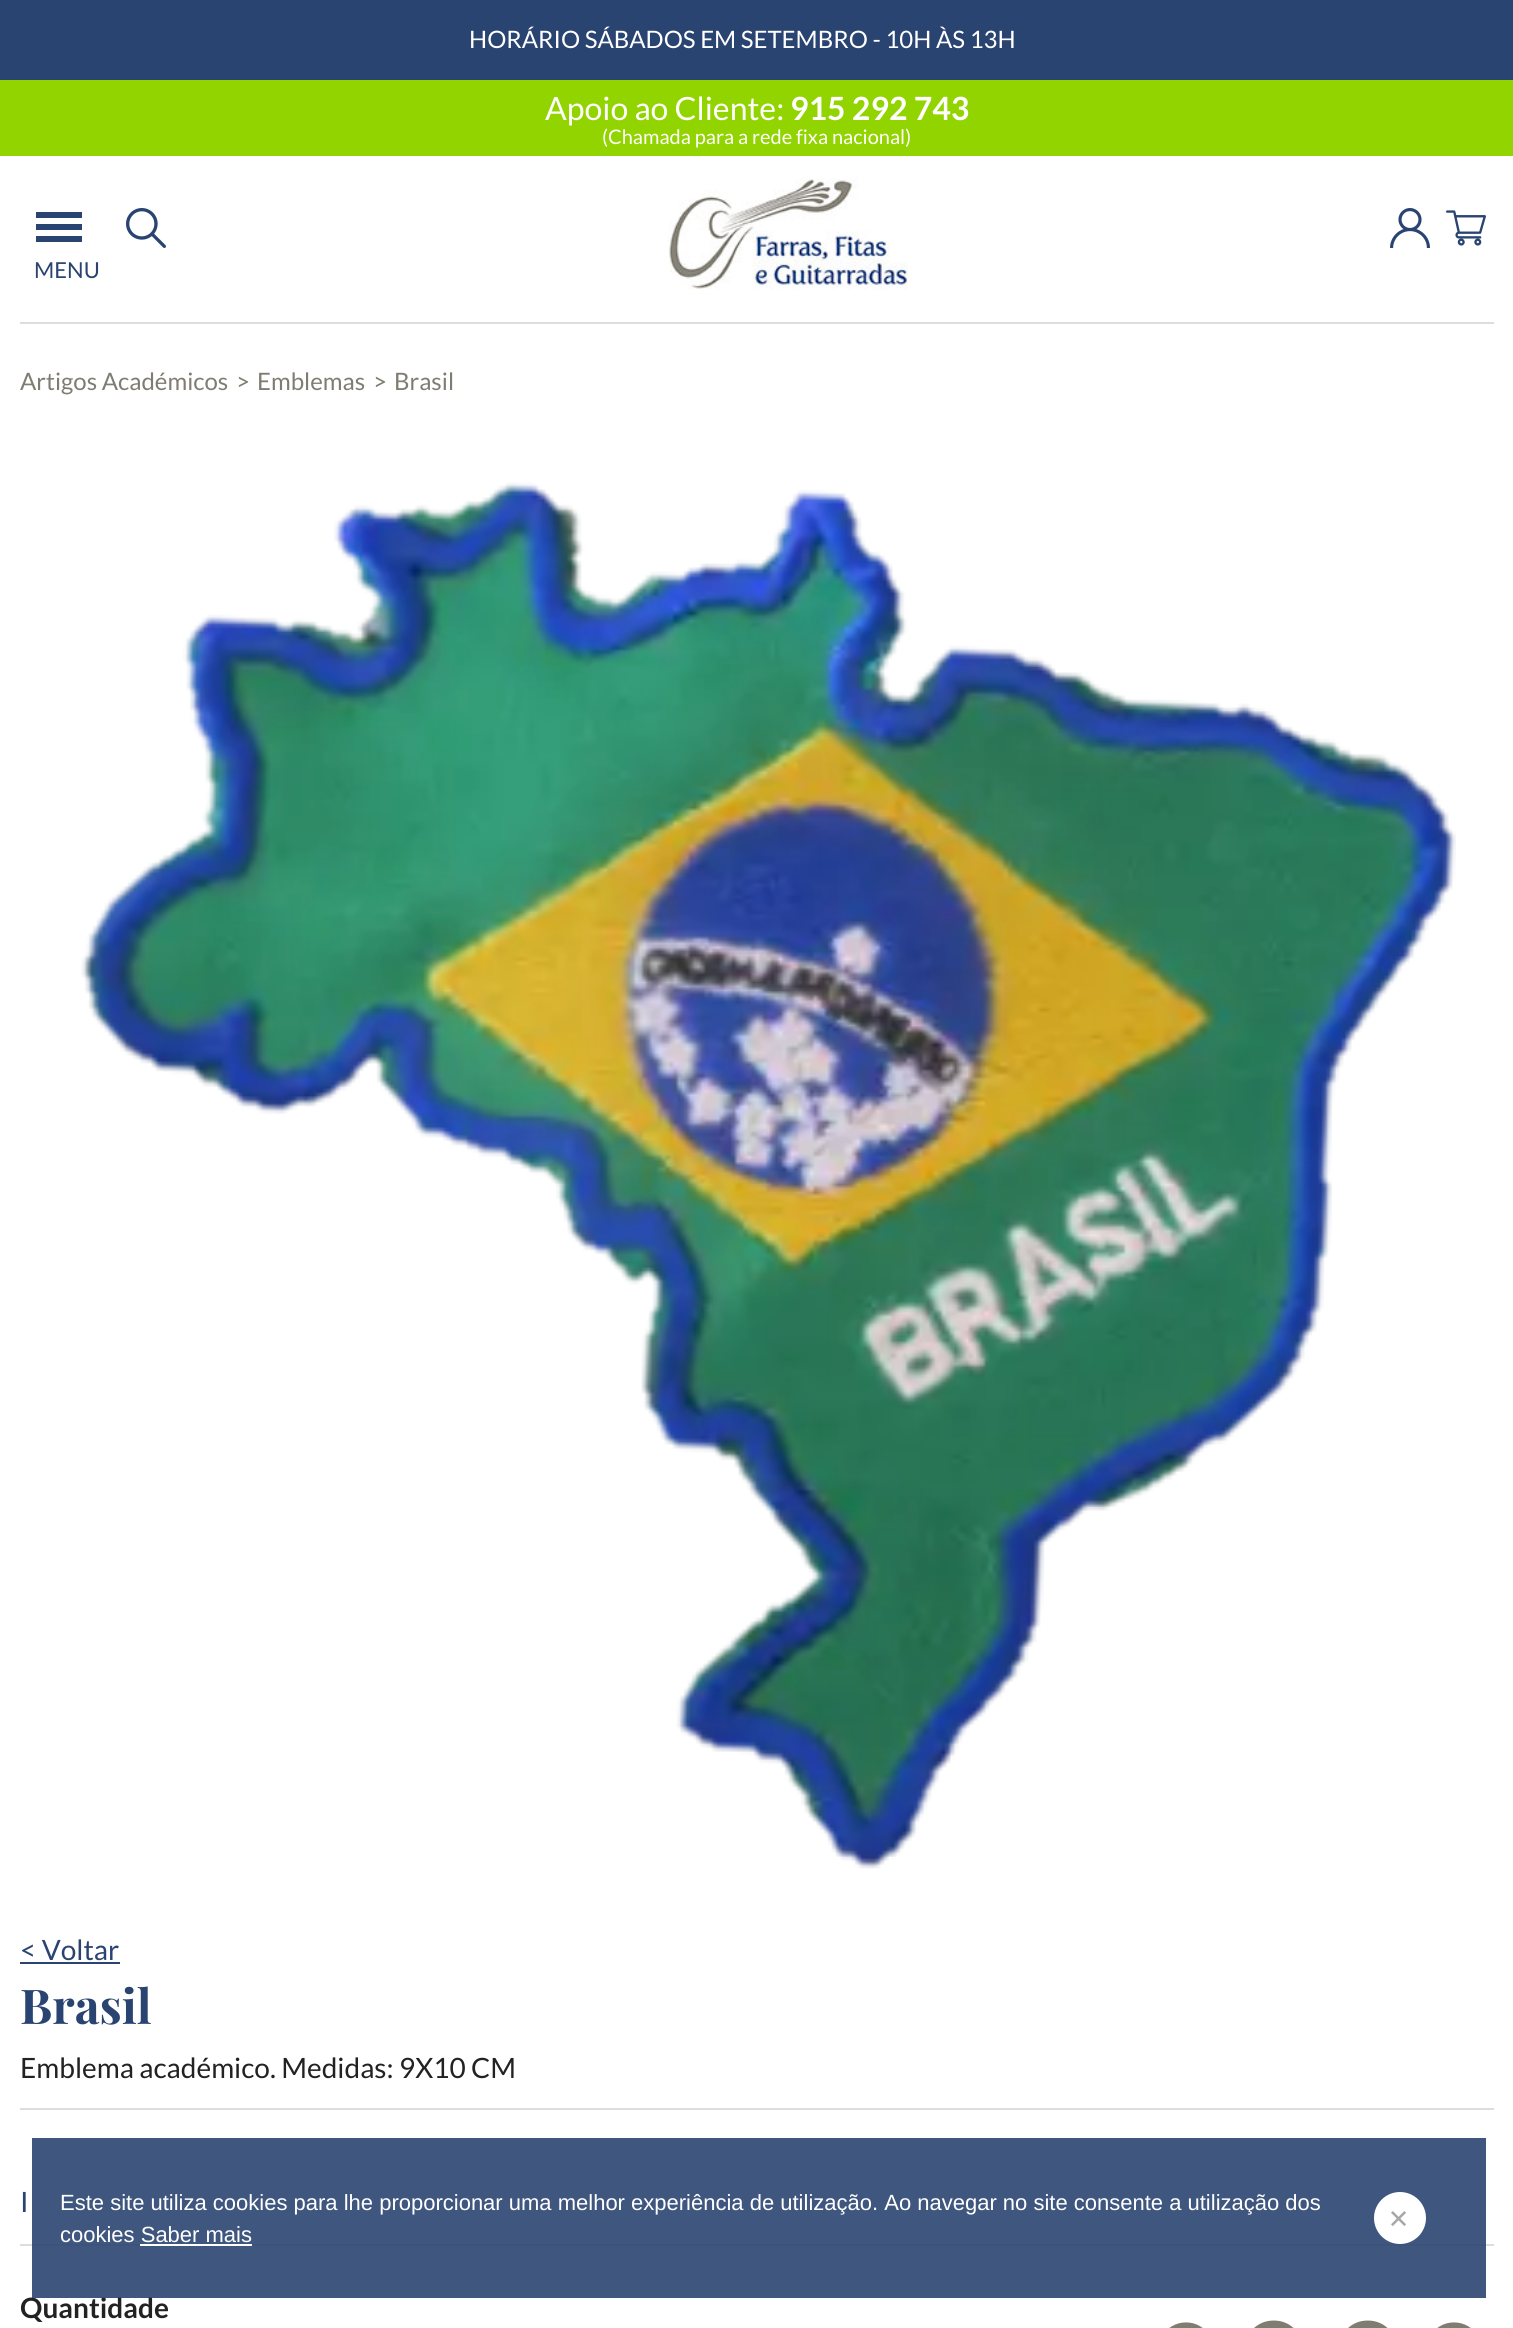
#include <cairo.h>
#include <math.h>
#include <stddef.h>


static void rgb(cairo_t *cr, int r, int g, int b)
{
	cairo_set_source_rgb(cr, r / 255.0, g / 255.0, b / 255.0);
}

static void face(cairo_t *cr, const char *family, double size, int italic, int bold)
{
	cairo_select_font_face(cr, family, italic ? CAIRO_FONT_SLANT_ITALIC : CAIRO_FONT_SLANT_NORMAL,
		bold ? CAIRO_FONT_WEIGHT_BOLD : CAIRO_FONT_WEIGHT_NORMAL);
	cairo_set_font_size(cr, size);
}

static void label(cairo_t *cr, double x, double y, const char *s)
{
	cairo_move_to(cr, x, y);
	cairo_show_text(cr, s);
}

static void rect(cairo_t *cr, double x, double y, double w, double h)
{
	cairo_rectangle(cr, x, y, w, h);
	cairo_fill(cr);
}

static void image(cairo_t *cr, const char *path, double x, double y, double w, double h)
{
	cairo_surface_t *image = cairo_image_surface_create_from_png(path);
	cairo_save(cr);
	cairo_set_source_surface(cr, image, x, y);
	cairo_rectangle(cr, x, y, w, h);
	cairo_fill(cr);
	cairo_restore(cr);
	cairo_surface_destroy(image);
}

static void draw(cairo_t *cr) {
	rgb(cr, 255, 255, 255);
	cairo_paint(cr);
	rgb(cr, 42, 68, 114);
	rect(cr, 0, 0, 1513, 80);
	face(cr, "Lato", 24, 0, 0);
	rgb(cr, 255, 255, 255);
	label(cr, 469, 48, "HORÁRIO SÁBADOS EM SETEMBRO - 10H ÀS 13H");
	rgb(cr, 146, 212, 0);
	rect(cr, 0, 80, 1513, 76);
	face(cr, "Lato", 32, 0, 0);
	rgb(cr, 255, 255, 255);
	label(cr, 545, 120, "Apoio ao Cliente:");
	face(cr, "Lato", 32, 0, 1);
	label(cr, 790, 120, "915 292 743");
	face(cr, "Lato", 20, 0, 0);
	label(cr, 602, 144, "(Chamada para a rede fixa nacional)");
	image(cr, "image0.png", 1390, 208, 40, 40);
	image(cr, "image1.png", 1446, 210, 40, 36);
	image(cr, "image2.png", 126, 208, 40, 40);
	image(cr, "image3.png", 668, 178, 240, 112);
	rgb(cr, 42, 68, 114);
	rect(cr, 36, 224, 46, 6);
	rect(cr, 36, 212, 46, 6);
	rect(cr, 36, 236, 46, 6);
	face(cr, "Lato", 22, 0, 0);
	label(cr, 34, 278, "MENU");
	rgb(cr, 221, 221, 221);
	rect(cr, 20, 322, 1474, 2);
	face(cr, "Lato", 24, 0, 0);
	rgb(cr, 127, 125, 113);
	label(cr, 20, 390, "Artigos Académicos");
	label(cr, 236, 390, ">");
	label(cr, 257, 390, "Emblemas");
	label(cr, 373, 390, ">");
	label(cr, 394, 390, "Brasil");
	image(cr, "image4.png", 81, 482, 1375, 1387);
	face(cr, "Lato", 28, 0, 0);
	rgb(cr, 42, 68, 114);
	label(cr, 20, 1960, "< Voltar");
	rect(cr, 20, 1962, 100, 2);
	face(cr, "Playfair Display", 48, 0, 1);
	label(cr, 20, 2024, "Brasil");
	face(cr, "Lato", 28, 0, 0);
	rgb(cr, 34, 34, 34);
	label(cr, 20, 2078, "Emblema académico. Medidas: 9X10 CM");
	rgb(cr, 221, 221, 221);
	rect(cr, 20, 2108, 1474, 2);
	rect(cr, 20, 2244, 1474, 2);
	rgb(cr, 42, 68, 114);
	label(cr, 20, 2212, "I");
	face(cr, "Lato", 28, 0, 1);
	rgb(cr, 34, 34, 34);
	label(cr, 20, 2318, "Quantidade");
	image(cr, "image5.png", 1169, 2322, 34, 6);
	image(cr, "image6.png", 1254, 2320, 40, 8);
	image(cr, "image7.png", 1348, 2320, 40, 8);
	image(cr, "image5.png", 1437, 2322, 34, 6);
	cairo_set_source_rgba(cr, 0.165, 0.267, 0.447, 0.9);
	rect(cr, 32, 2138, 1454, 160);
	face(cr, "Liberation Sans", 22, 0, 0);
	rgb(cr, 255, 255, 255);
	label(cr, 60, 2210, "Este site utiliza cookies para lhe proporcionar uma melhor experiência de utilização. Ao navegar no site consente a utilização dos");
	label(cr, 60, 2242, "cookies Saber mais");
	rect(cr, 140, 2244, 112, 2);
	cairo_new_path(cr);
	cairo_arc(cr, 1400, 2218, 26, 0, 2 * M_PI);
	cairo_fill(cr);
	image(cr, "image8.png", 1391, 2211, 15, 15);
}

int main(void) {
	cairo_surface_t *surface = cairo_image_surface_create(CAIRO_FORMAT_RGB24, 1513, 2328);
	cairo_t *cr = cairo_create(surface);
	cairo_font_options_t *options = cairo_font_options_create();
	cairo_font_options_set_hint_metrics(options, CAIRO_HINT_METRICS_OFF);
	cairo_font_options_set_hint_style(options, CAIRO_HINT_STYLE_NONE);
	cairo_set_font_options(cr, options);
	cairo_set_miter_limit(cr, 4);
	draw(cr);
	cairo_surface_write_to_png(surface, "render.png");
	cairo_font_options_destroy(options);
	cairo_destroy(cr);
	cairo_surface_destroy(surface);
	return 0;
}
